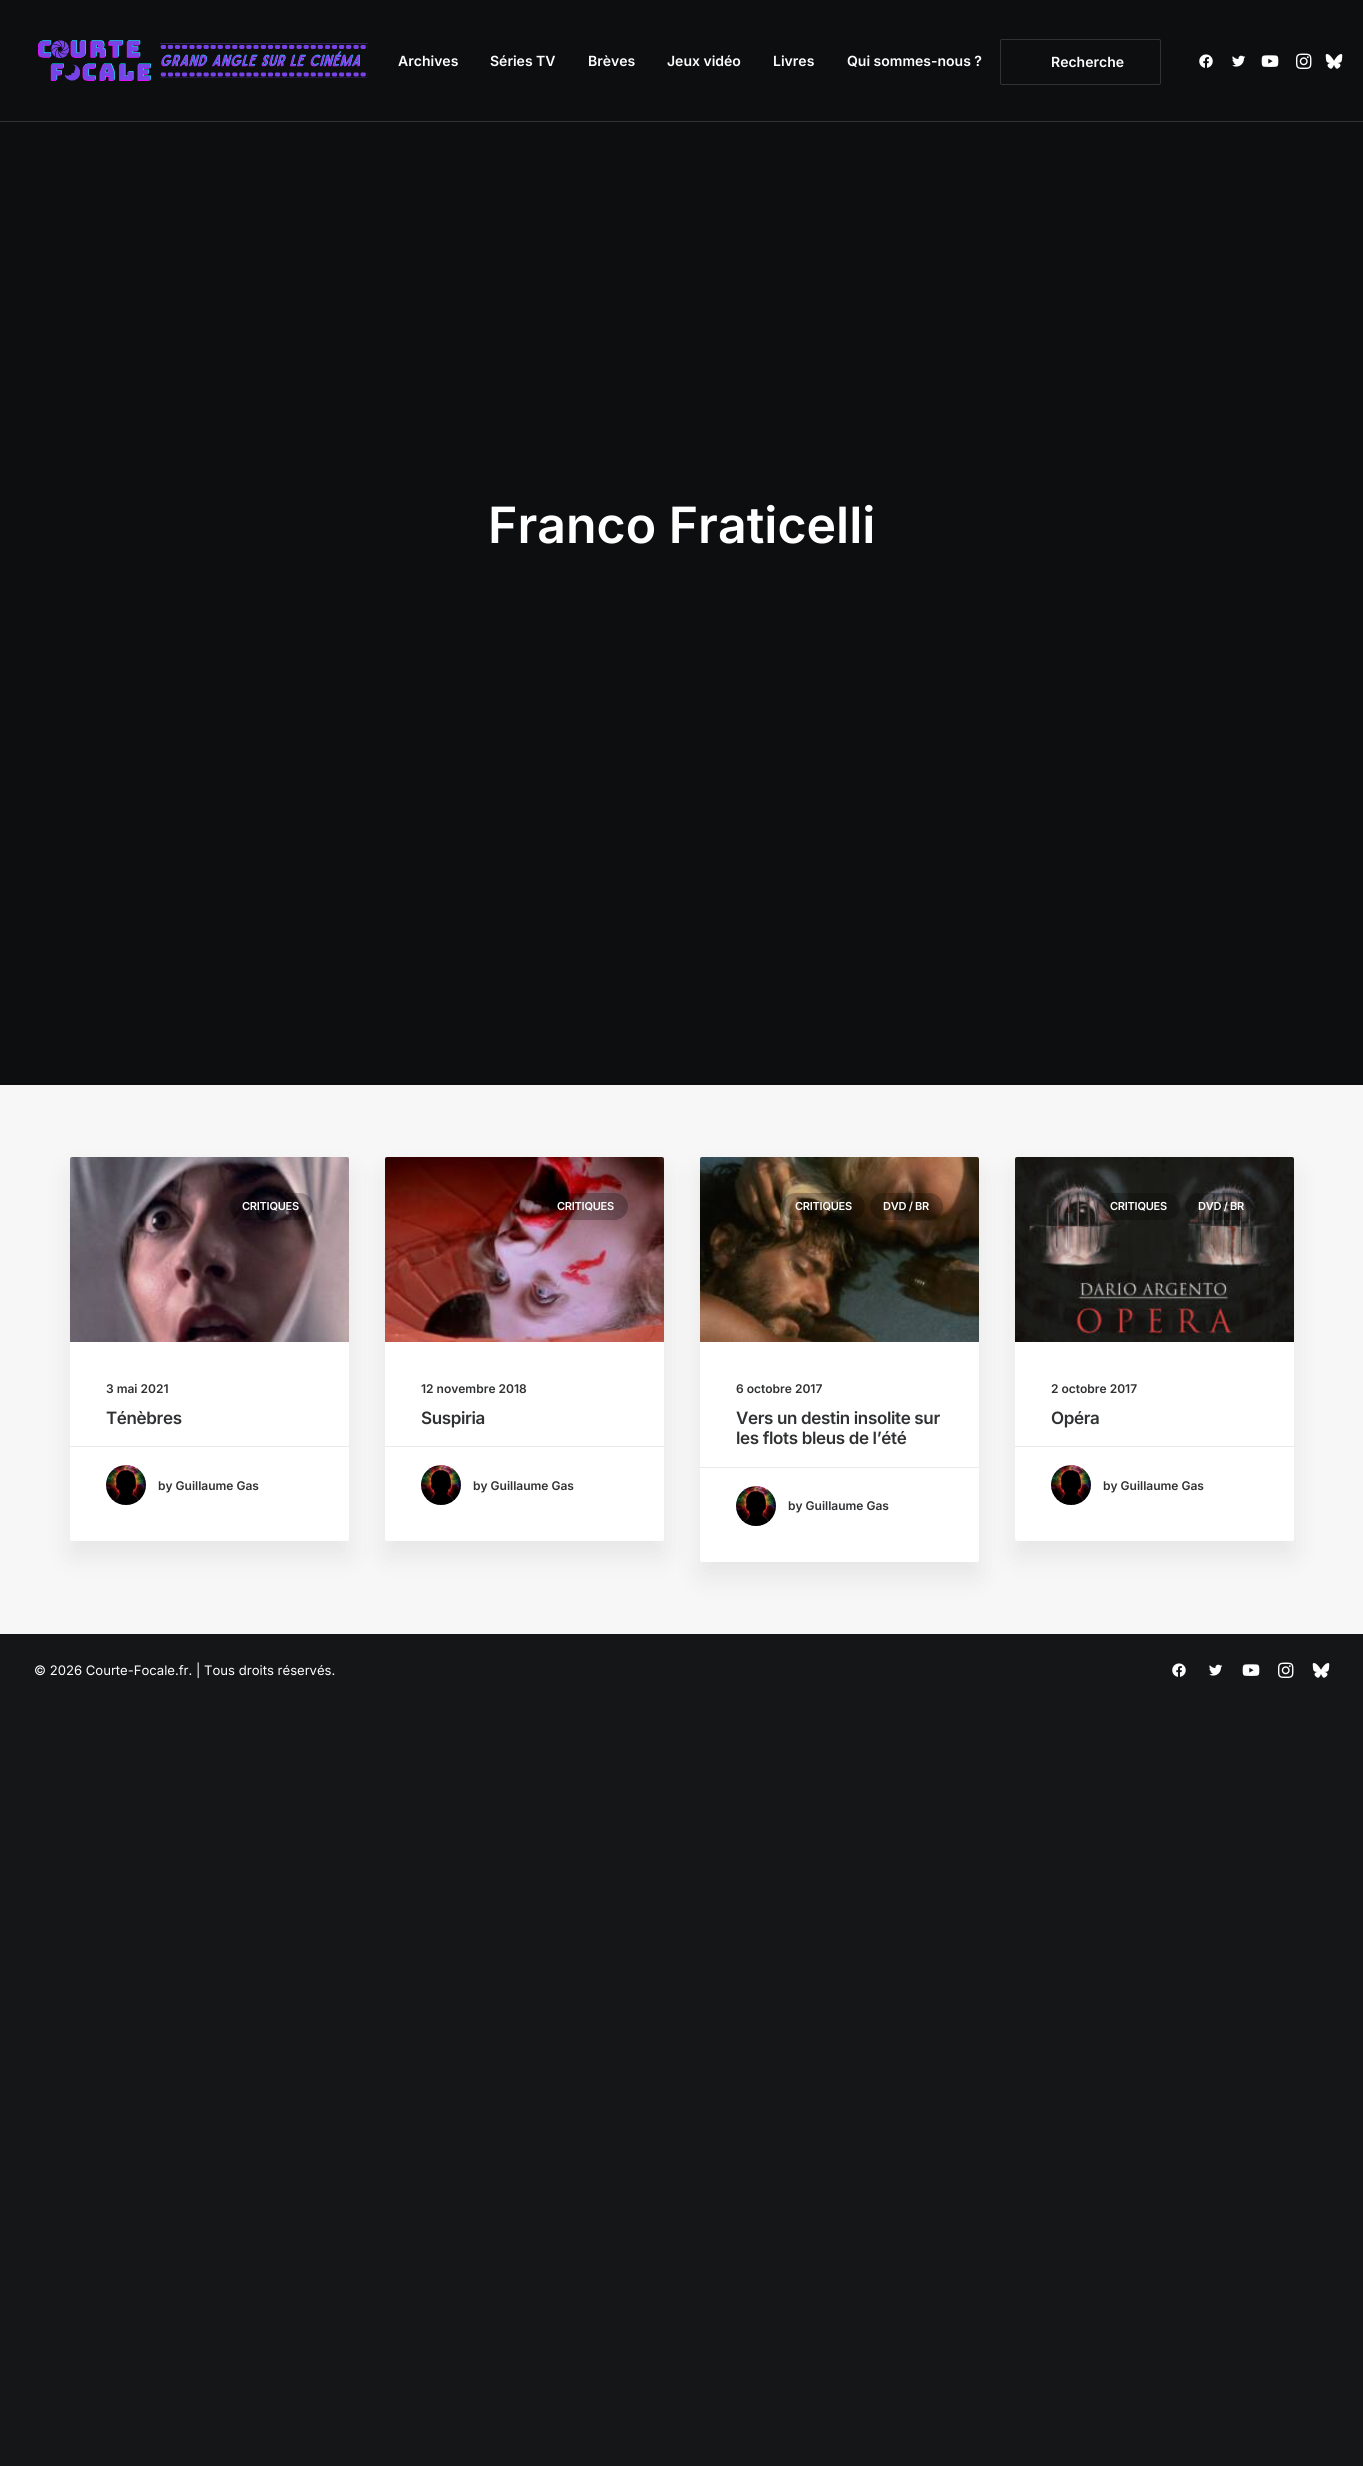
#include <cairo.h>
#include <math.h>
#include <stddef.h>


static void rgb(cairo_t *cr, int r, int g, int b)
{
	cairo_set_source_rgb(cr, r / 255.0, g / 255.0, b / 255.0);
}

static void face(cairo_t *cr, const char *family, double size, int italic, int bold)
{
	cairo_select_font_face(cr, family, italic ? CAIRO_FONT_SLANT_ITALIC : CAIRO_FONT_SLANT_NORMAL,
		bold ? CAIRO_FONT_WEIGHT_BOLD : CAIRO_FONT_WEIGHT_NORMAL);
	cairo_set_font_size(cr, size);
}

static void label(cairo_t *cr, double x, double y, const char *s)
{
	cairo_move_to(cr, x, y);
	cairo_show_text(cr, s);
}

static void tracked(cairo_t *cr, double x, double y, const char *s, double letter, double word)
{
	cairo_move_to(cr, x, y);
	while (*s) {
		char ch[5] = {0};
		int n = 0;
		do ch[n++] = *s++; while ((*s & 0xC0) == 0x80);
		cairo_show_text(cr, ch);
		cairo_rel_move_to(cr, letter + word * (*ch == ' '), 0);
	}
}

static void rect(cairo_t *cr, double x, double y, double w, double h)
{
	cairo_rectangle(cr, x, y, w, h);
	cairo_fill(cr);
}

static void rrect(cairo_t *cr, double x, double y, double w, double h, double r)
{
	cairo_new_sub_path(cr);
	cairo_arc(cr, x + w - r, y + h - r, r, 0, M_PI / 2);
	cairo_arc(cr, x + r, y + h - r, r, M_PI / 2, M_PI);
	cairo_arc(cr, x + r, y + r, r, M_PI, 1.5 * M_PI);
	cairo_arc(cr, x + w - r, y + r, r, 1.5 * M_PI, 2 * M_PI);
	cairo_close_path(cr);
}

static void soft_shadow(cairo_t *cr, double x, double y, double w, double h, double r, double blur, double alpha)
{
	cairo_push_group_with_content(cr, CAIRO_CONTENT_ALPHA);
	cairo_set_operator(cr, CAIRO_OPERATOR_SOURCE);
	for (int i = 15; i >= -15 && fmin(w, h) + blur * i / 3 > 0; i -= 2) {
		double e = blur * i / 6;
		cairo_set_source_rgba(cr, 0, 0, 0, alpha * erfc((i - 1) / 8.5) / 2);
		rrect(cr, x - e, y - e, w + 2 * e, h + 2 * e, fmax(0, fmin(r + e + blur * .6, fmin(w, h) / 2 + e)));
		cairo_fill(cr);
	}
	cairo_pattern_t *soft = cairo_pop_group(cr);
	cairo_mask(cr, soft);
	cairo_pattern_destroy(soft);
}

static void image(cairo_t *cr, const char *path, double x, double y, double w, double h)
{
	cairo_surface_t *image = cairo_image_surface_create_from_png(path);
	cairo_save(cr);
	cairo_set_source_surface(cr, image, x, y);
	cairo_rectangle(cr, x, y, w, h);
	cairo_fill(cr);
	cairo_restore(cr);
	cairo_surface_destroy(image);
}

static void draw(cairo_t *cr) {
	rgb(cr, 20, 22, 24);
	cairo_paint(cr);
	rgb(cr, 13, 14, 16);
	rect(cr, 0, 0, 1363, 1085);
	image(cr, "image0.png", 38, 40, 330, 41);
	face(cr, "Inter SemiBold", 14, 0, 0);
	rgb(cr, 255, 255, 255);
	label(cr, 398, 66, "Archives");
	label(cr, 490, 66, "Séries TV");
	label(cr, 588, 66, "Brèves");
	label(cr, 667, 66, "Jeux vidéo");
	label(cr, 773, 66, "Livres");
	label(cr, 847, 66, "Qui sommes-nous ?");
	rrect(cr, 1000.5, 39.5, 160, 45, 1.5);
	rgb(cr, 49, 50, 52);
	cairo_set_line_width(cr, 1);
	cairo_stroke(cr);
	rgb(cr, 255, 255, 255);
	label(cr, 1051, 67, "Recherche");
	image(cr, "image1.png", 1199, 54, 14, 14);
	image(cr, "image2.png", 1232, 55, 14, 12);
	image(cr, "image3.png", 1261, 55, 18, 12);
	image(cr, "image4.png", 1296, 53, 16, 16);
	image(cr, "image5.png", 1325, 54, 18, 15);
	rgb(cr, 49, 50, 52);
	rect(cr, 0, 121, 1363, 1);
	face(cr, "Inter SemiBold", 50, 0, 0);
	rgb(cr, 255, 255, 255);
	label(cr, 488, 543, "Franco Fraticelli");
	rgb(cr, 247, 247, 247);
	rect(cr, 0, 1085, 1363, 549);
	rgb(cr, 0, 0, 0);
	soft_shadow(cr, 70, 1172, 279, 384, 2, 15, 0.07);
	rgb(cr, 255, 255, 255);
	rrect(cr, 70, 1157, 279, 384, 2);
	cairo_fill(cr);
	image(cr, "image6.png", 70, 1157, 279, 185);
	cairo_set_source_rgba(cr, 0, 0, 0, 0.25);
	rrect(cr, 229, 1193, 84, 27, 13.5);
	cairo_fill(cr);
	face(cr, "Inter SemiBold", 11, 0, 0);
	rgb(cr, 255, 255, 255);
	tracked(cr, 242, 1210, "CRITIQUES", -0.25, 0);
	face(cr, "Inter SemiBold", 12, 0, 0);
	rgb(cr, 48, 49, 51);
	label(cr, 106, 1393, "3 mai 2021");
	face(cr, "Inter SemiBold", 17, 0, 0);
	tracked(cr, 106, 1424, "Ténèbres", -0.35, 0);
	rgb(cr, 234, 234, 234);
	rect(cr, 70, 1446, 279, 1);
	image(cr, "image7.png", 106, 1465, 40, 40);
	face(cr, "Inter SemiBold", 12, 0, 0);
	rgb(cr, 48, 49, 51);
	label(cr, 158, 1490, "by Guillaume Gas");
	rgb(cr, 0, 0, 0);
	soft_shadow(cr, 385, 1172, 279, 384, 2, 15, 0.07);
	rgb(cr, 255, 255, 255);
	rrect(cr, 385, 1157, 279, 384, 2);
	cairo_fill(cr);
	image(cr, "image8.png", 385, 1157, 279, 185);
	cairo_set_source_rgba(cr, 0, 0, 0, 0.25);
	rrect(cr, 544, 1193, 84, 27, 13.5);
	cairo_fill(cr);
	face(cr, "Inter SemiBold", 11, 0, 0);
	rgb(cr, 255, 255, 255);
	tracked(cr, 557, 1210, "CRITIQUES", -0.25, 0);
	face(cr, "Inter SemiBold", 12, 0, 0);
	rgb(cr, 48, 49, 51);
	label(cr, 421, 1393, "12 novembre 2018");
	face(cr, "Inter SemiBold", 17, 0, 0);
	tracked(cr, 421, 1424, "Suspiria", -0.35, 0);
	rgb(cr, 234, 234, 234);
	rect(cr, 385, 1446, 279, 1);
	image(cr, "image7.png", 421, 1465, 40, 40);
	face(cr, "Inter SemiBold", 12, 0, 0);
	rgb(cr, 48, 49, 51);
	label(cr, 473, 1490, "by Guillaume Gas");
	rgb(cr, 0, 0, 0);
	soft_shadow(cr, 700, 1172, 279, 405, 2, 15, 0.07);
	rgb(cr, 255, 255, 255);
	rrect(cr, 700, 1157, 279, 405, 2);
	cairo_fill(cr);
	image(cr, "image9.png", 700, 1157, 279, 185);
	cairo_set_source_rgba(cr, 0, 0, 0, 0.25);
	rrect(cr, 782, 1193, 83, 27, 13.5);
	cairo_fill(cr);
	face(cr, "Inter SemiBold", 11, 0, 0);
	rgb(cr, 255, 255, 255);
	tracked(cr, 795, 1210, "CRITIQUES", -0.25, 0);
	cairo_set_source_rgba(cr, 0, 0, 0, 0.25);
	rrect(cr, 870, 1193, 73, 27, 13.5);
	cairo_fill(cr);
	rgb(cr, 255, 255, 255);
	tracked(cr, 883, 1210, "DVD / BR", -0.25, 0);
	face(cr, "Inter SemiBold", 12, 0, 0);
	rgb(cr, 48, 49, 51);
	label(cr, 736, 1393, "6 octobre 2017");
	face(cr, "Inter SemiBold", 17, 0, 0);
	tracked(cr, 736, 1424, "Vers un destin insolite sur", -0.35, 0);
	tracked(cr, 736, 1444, "les flots bleus de l’été", -0.35, 0);
	rgb(cr, 234, 234, 234);
	rect(cr, 700, 1467, 279, 1);
	image(cr, "image7.png", 736, 1486, 40, 40);
	face(cr, "Inter SemiBold", 12, 0, 0);
	rgb(cr, 48, 49, 51);
	label(cr, 788, 1510, "by Guillaume Gas");
	rgb(cr, 0, 0, 0);
	soft_shadow(cr, 1015, 1172, 279, 384, 2, 15, 0.07);
	rgb(cr, 255, 255, 255);
	rrect(cr, 1015, 1157, 279, 384, 2);
	cairo_fill(cr);
	image(cr, "image10.png", 1015, 1157, 279, 185);
	cairo_set_source_rgba(cr, 0, 0, 0, 0.25);
	rrect(cr, 1097, 1193, 83, 27, 13.5);
	cairo_fill(cr);
	face(cr, "Inter SemiBold", 11, 0, 0);
	rgb(cr, 255, 255, 255);
	tracked(cr, 1110, 1210, "CRITIQUES", -0.25, 0);
	cairo_set_source_rgba(cr, 0, 0, 0, 0.25);
	rrect(cr, 1185, 1193, 73, 27, 13.5);
	cairo_fill(cr);
	rgb(cr, 255, 255, 255);
	tracked(cr, 1198, 1210, "DVD / BR", -0.25, 0);
	face(cr, "Inter SemiBold", 12, 0, 0);
	rgb(cr, 48, 49, 51);
	label(cr, 1051, 1393, "2 octobre 2017");
	face(cr, "Inter SemiBold", 17, 0, 0);
	tracked(cr, 1051, 1424, "Opéra", -0.35, 0);
	rgb(cr, 234, 234, 234);
	rect(cr, 1015, 1446, 279, 1);
	image(cr, "image7.png", 1051, 1465, 40, 40);
	face(cr, "Inter SemiBold", 12, 0, 0);
	rgb(cr, 48, 49, 51);
	label(cr, 1103, 1490, "by Guillaume Gas");
	face(cr, "Inter", 13.1, 0, 0);
	rgb(cr, 255, 255, 255);
	label(cr, 34, 1675, "© 2026 Courte-Focale.fr. | Tous droits réservés.");
	image(cr, "image11.png", 1172, 1663, 14, 14);
	image(cr, "image12.png", 1209, 1664, 14, 12);
	image(cr, "image13.png", 1242, 1664, 18, 12);
	image(cr, "image14.png", 1278, 1662, 16, 16);
	image(cr, "image15.png", 1312, 1663, 18, 15);
}

int main(void) {
	cairo_surface_t *surface = cairo_image_surface_create(CAIRO_FORMAT_RGB24, 1363, 2466);
	cairo_t *cr = cairo_create(surface);
	cairo_font_options_t *options = cairo_font_options_create();
	cairo_font_options_set_hint_metrics(options, CAIRO_HINT_METRICS_OFF);
	cairo_font_options_set_hint_style(options, CAIRO_HINT_STYLE_NONE);
	cairo_set_font_options(cr, options);
	cairo_set_miter_limit(cr, 4);
	draw(cr);
	cairo_surface_write_to_png(surface, "render.png");
	cairo_font_options_destroy(options);
	cairo_destroy(cr);
	cairo_surface_destroy(surface);
	return 0;
}
